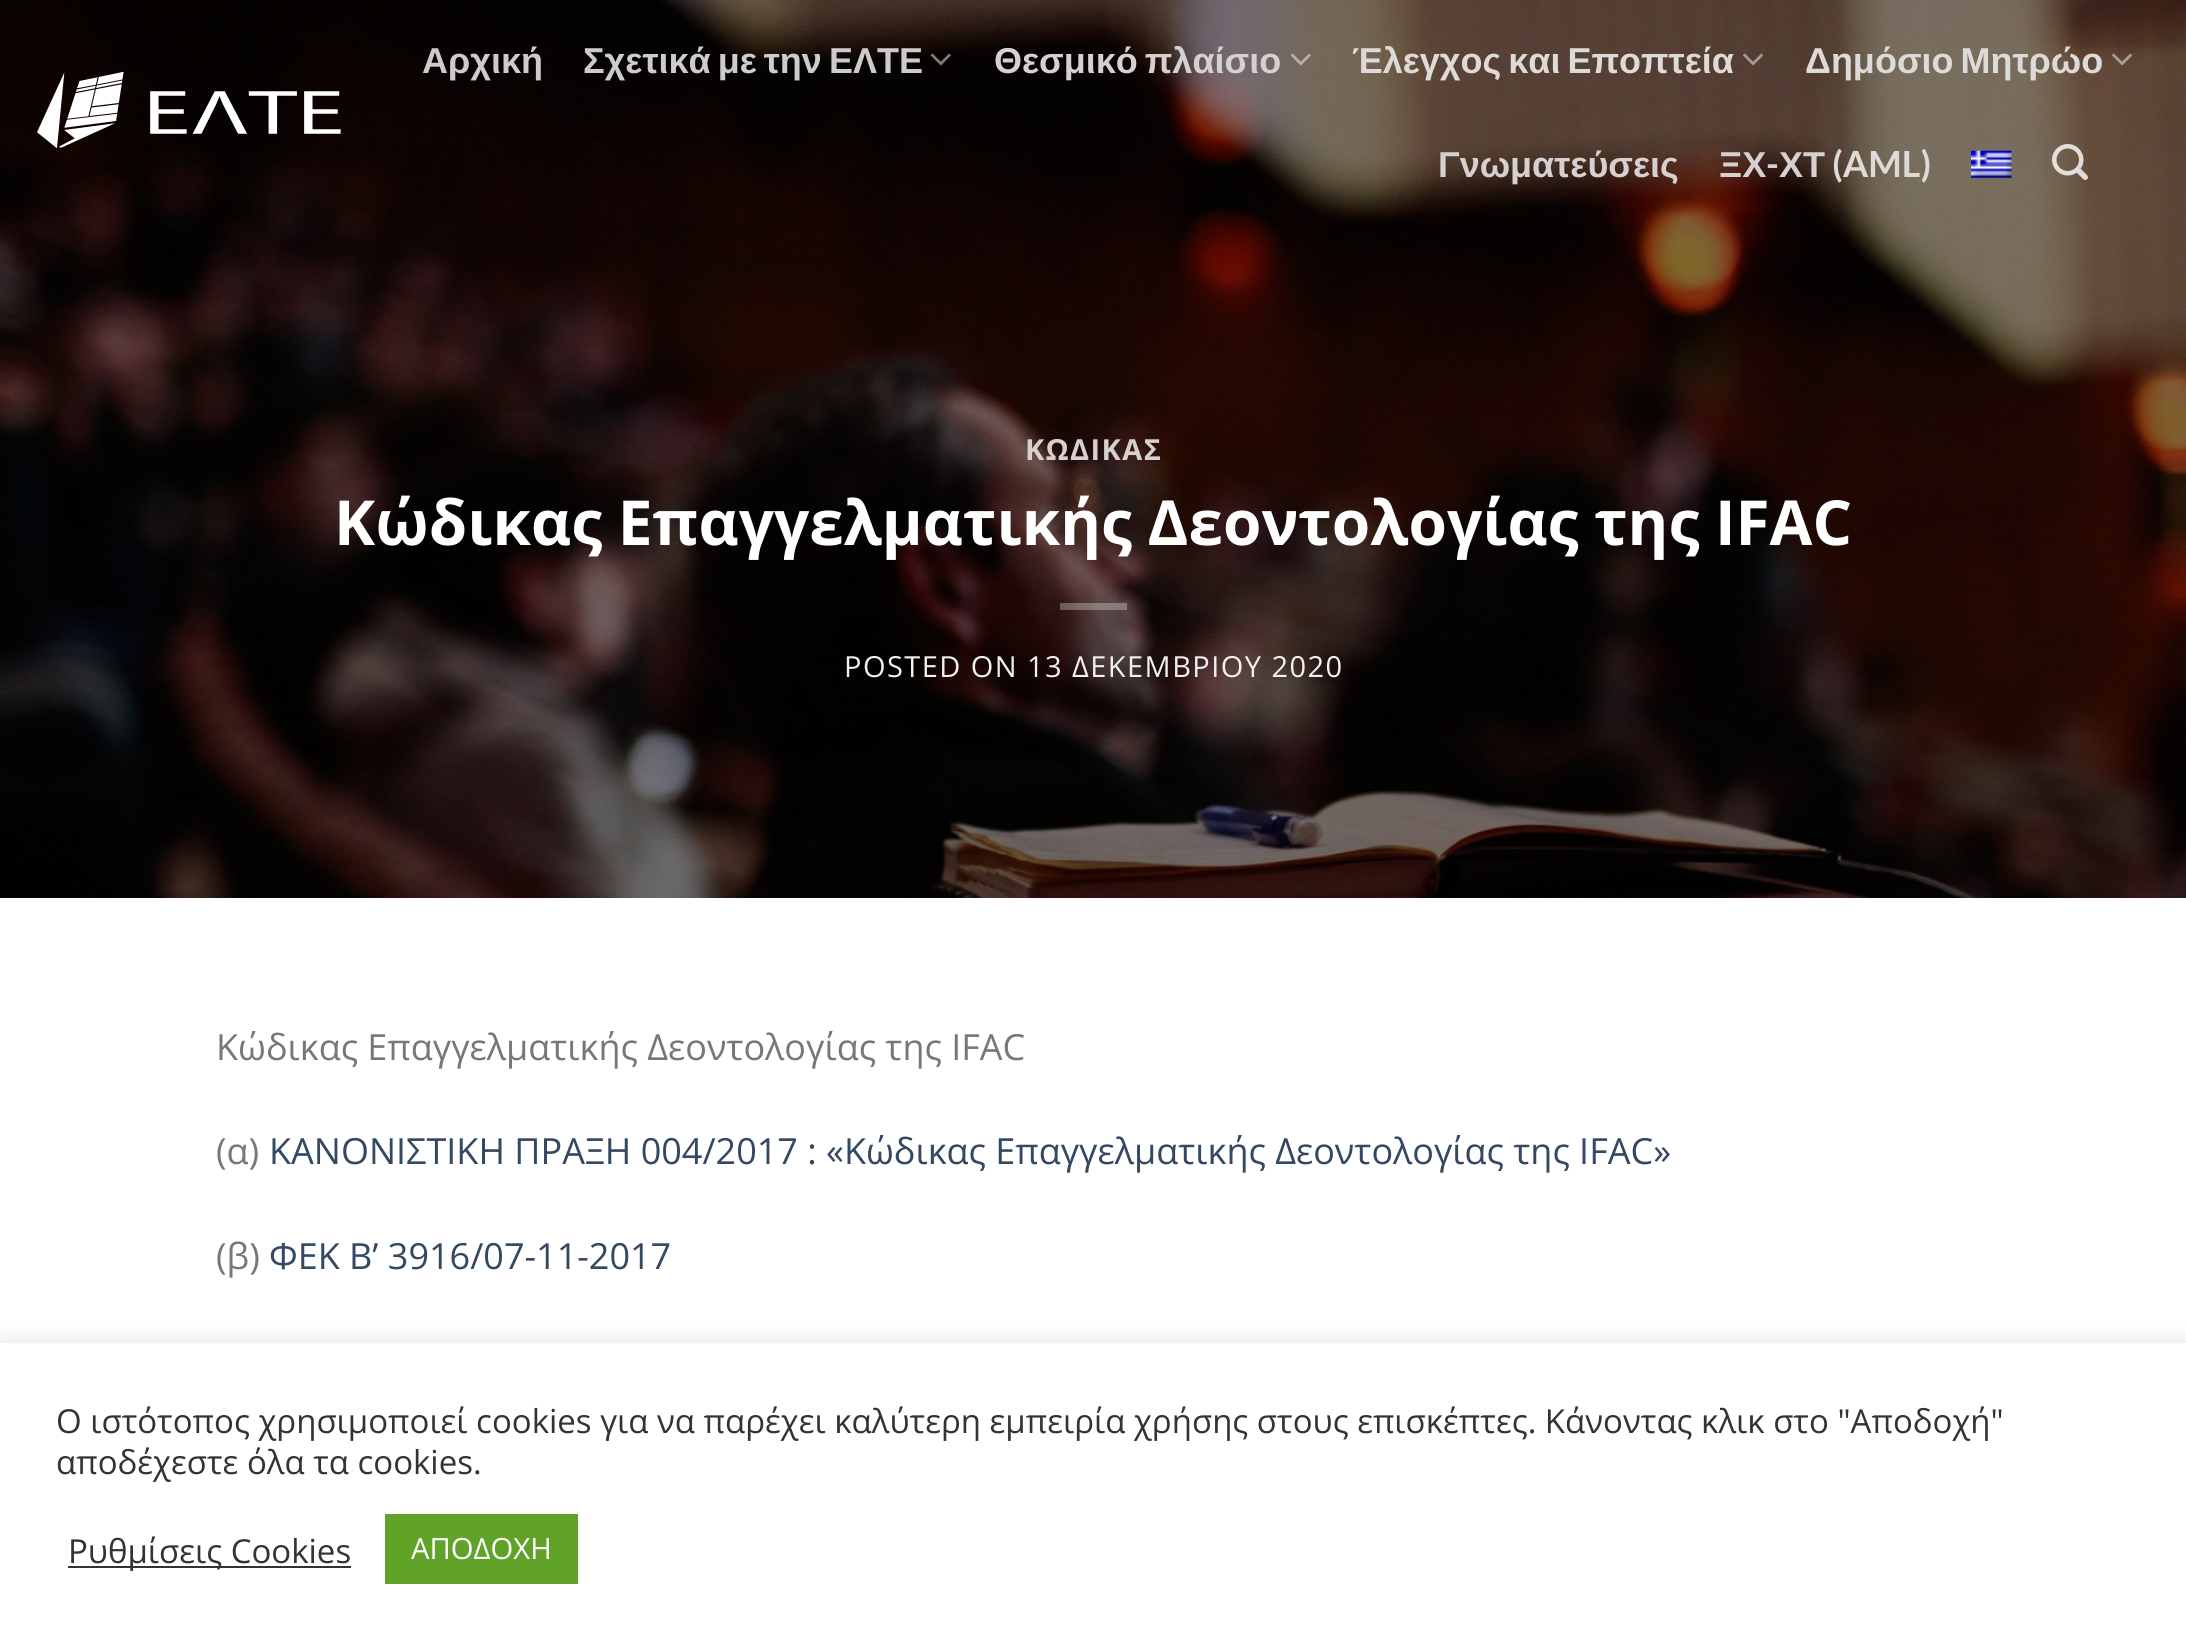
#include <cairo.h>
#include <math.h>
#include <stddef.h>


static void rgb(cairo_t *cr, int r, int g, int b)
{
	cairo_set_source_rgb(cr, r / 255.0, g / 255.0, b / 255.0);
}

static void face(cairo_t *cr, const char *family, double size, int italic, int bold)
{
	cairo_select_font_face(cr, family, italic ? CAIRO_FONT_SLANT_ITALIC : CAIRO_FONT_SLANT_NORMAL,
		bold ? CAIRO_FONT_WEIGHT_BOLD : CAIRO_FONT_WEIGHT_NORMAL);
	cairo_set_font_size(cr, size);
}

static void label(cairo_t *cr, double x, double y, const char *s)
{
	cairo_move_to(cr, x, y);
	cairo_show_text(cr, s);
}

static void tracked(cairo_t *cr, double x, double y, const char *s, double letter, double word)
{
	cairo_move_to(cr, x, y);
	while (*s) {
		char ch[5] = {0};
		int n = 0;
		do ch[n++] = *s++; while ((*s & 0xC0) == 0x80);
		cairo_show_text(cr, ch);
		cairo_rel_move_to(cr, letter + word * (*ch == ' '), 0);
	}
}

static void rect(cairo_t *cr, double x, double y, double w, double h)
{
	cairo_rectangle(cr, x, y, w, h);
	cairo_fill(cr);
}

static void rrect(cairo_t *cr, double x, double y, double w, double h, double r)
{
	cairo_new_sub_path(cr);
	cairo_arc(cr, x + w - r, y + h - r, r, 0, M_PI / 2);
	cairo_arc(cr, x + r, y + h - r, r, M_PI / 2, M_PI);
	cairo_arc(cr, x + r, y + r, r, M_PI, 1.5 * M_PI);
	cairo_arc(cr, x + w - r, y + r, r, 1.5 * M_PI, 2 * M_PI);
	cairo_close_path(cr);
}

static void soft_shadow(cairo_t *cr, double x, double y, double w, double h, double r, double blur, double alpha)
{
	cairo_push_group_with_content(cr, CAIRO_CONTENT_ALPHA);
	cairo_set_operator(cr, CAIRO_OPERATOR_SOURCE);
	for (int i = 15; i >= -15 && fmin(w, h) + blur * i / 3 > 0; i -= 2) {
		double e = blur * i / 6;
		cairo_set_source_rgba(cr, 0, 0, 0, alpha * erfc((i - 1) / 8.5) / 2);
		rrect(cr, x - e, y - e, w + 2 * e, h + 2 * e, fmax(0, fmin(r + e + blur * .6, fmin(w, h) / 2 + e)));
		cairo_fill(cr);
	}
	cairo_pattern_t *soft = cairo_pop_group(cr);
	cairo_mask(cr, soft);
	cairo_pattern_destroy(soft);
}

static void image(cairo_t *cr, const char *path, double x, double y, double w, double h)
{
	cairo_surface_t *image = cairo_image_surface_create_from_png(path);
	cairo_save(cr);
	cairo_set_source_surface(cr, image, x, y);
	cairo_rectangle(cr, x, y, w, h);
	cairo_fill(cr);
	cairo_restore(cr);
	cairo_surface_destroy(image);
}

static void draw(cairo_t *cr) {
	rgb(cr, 255, 255, 255);
	cairo_paint(cr);
	image(cr, "image7.png", 0, 0, 2186, 898);
	image(cr, "image0.png", 37, 71, 304, 78);
	face(cr, "Liberation Sans", 36, 0, 1);
	rgb(cr, 205, 204, 204);
	label(cr, 422, 73, "Αρχική");
	tracked(cr, 583, 73, "Σχετικά με την ΕΛΤΕ", 0, -3);
	image(cr, "image1.png", 930, 53, 21, 13);
	rgb(cr, 214, 209, 208);
	tracked(cr, 994, 73, "Θεσμικό πλαίσιο", 0, -3);
	image(cr, "image2.png", 1290, 53, 21, 13);
	rgb(cr, 222, 218, 215);
	tracked(cr, 1352, 73, "Έλεγχος και Εποπτεία", 0, -3);
	image(cr, "image3.png", 1743, 53, 20, 13);
	tracked(cr, 1805, 73, "Δημόσιο Μητρώο", 0, -3);
	image(cr, "image4.png", 2112, 53, 20, 13);
	rgb(cr, 214, 209, 208);
	label(cr, 1438, 177, "Γνωματεύσεις");
	label(cr, 1719, 177, "ΞΧ");
	face(cr, "Lato", 36, 0, 1);
	label(cr, 1766, 177, "-");
	face(cr, "Liberation Sans", 36, 0, 1);
	label(cr, 1779, 177, "ΧΤ");
	face(cr, "Lato", 36, 0, 1);
	rgb(cr, 222, 218, 215);
	label(cr, 1832, 177, "(AML)");
	image(cr, "image5.png", 1971, 150, 41, 28);
	image(cr, "image6.png", 2052, 144, 36, 36);
	face(cr, "Open Sans", 29, 0, 1);
	rgb(cr, 214, 209, 208);
	tracked(cr, 1025, 460, "ΚΩΔΙΚΑΣ", 1.45, 0);
	face(cr, "Open Sans", 62.1, 0, 1);
	rgb(cr, 255, 255, 255);
	tracked(cr, 334, 545, "Κώδικας Επαγγελματικής Δεοντολογίας της IFAC", 0, -0.5);
	cairo_set_source_rgba(cr, 1, 1, 1, 0.3);
	rect(cr, 1060, 603, 67, 7);
	face(cr, "Open Sans", 29, 0, 0);
	rgb(cr, 241, 241, 241);
	tracked(cr, 844, 677, "POSTED ON 13 ΔΕΚΕΜΒΡΙΟΥ 2020", 1.45, 0);
	face(cr, "Open Sans", 36, 0, 0);
	rgb(cr, 119, 119, 119);
	label(cr, 216, 1060, "Κώδικας Επαγγελματικής Δεοντολογίας της IFAC");
	label(cr, 216, 1164, "(α)");
	rgb(cr, 51, 72, 98);
	label(cr, 269, 1164, "ΚΑΝΟΝΙΣΤΙΚΗ ΠΡΑΞΗ 004/2017 : «Κώδικας Επαγγελματικής Δεοντολογίας της IFAC»");
	rgb(cr, 119, 119, 119);
	label(cr, 216, 1269, "(β)");
	rgb(cr, 51, 72, 98);
	label(cr, 269, 1269, "ΦΕΚ Β’ 3916/07-11-2017");
	rgb(cr, 172, 171, 171);
	soft_shadow(cr, 0, 1341, 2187, 308, 0, 11, 0.3);
	rgb(cr, 255, 255, 255);
	rect(cr, 0, 1343, 2186, 307);
	face(cr, "Open Sans", 33, 0, 0);
	rgb(cr, 51, 51, 51);
	label(cr, 56, 1433, "Ο ιστότοπος χρησιμοποιεί cookies για να παρέχει καλύτερη εμπειρία χρήσης στους επισκέπτες. Κάνοντας κλικ στο \"Αποδοχή\"");
	label(cr, 56, 1474, "αποδέχεστε όλα τα cookies.");
	rect(cr, 68, 1566, 283, 2);
	label(cr, 68, 1563, "Ρυθμίσεις Cookies");
	rgb(cr, 97, 162, 41);
	rect(cr, 385, 1514, 193, 70);
	face(cr, "Open Sans", 29.25, 0, 0);
	rgb(cr, 255, 255, 255);
	label(cr, 411, 1559, "ΑΠΟΔΟΧΗ");
}

int main(void) {
	cairo_surface_t *surface = cairo_image_surface_create(CAIRO_FORMAT_RGB24, 2186, 1650);
	cairo_t *cr = cairo_create(surface);
	cairo_font_options_t *options = cairo_font_options_create();
	cairo_font_options_set_hint_metrics(options, CAIRO_HINT_METRICS_OFF);
	cairo_font_options_set_hint_style(options, CAIRO_HINT_STYLE_NONE);
	cairo_set_font_options(cr, options);
	cairo_set_miter_limit(cr, 4);
	draw(cr);
	cairo_surface_write_to_png(surface, "render.png");
	cairo_font_options_destroy(options);
	cairo_destroy(cr);
	cairo_surface_destroy(surface);
	return 0;
}
